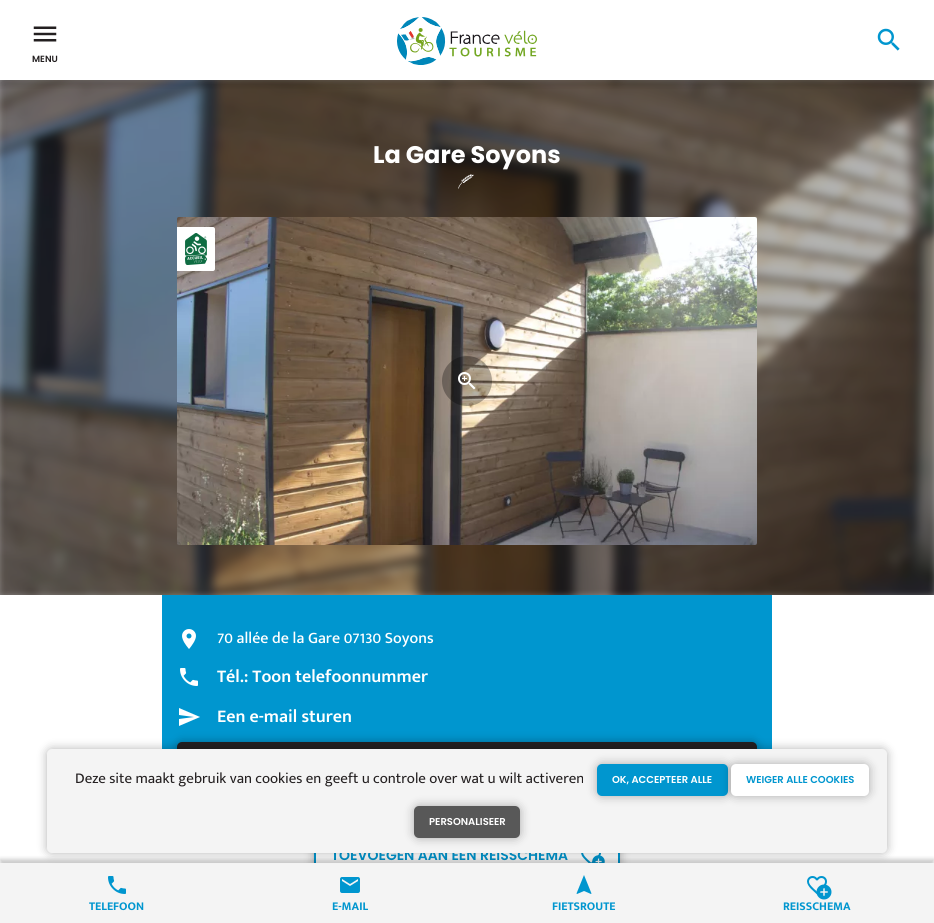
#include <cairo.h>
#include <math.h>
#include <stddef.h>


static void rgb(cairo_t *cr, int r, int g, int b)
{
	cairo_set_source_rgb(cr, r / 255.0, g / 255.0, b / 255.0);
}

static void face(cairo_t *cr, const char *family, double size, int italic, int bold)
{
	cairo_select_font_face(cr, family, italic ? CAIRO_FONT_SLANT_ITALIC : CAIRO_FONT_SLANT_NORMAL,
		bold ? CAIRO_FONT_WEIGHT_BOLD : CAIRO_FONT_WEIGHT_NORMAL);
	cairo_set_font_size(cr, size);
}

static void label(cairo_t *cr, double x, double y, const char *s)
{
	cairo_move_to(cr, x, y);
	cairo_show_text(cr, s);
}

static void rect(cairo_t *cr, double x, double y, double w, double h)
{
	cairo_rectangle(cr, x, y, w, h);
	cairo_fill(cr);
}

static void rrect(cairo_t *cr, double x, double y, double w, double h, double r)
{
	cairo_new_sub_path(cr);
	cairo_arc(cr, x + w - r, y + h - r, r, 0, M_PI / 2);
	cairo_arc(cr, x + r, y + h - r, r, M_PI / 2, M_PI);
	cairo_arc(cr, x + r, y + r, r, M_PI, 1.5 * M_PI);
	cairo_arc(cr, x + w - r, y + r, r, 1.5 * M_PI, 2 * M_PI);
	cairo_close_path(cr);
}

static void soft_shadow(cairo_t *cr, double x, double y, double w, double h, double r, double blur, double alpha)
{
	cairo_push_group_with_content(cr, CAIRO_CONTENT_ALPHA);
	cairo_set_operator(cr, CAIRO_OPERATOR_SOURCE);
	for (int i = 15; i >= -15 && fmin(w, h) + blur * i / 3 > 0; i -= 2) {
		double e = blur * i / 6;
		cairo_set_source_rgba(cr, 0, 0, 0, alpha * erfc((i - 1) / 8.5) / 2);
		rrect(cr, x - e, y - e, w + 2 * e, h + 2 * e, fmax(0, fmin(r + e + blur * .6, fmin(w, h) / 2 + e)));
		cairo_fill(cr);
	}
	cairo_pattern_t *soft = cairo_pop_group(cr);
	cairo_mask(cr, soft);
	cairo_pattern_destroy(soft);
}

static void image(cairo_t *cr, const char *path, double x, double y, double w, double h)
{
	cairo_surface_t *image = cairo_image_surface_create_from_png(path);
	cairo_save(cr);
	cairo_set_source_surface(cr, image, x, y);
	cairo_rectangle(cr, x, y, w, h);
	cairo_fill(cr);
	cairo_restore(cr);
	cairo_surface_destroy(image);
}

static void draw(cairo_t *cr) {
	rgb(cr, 255, 255, 255);
	cairo_paint(cr);
	image(cr, "image3.png", 0, 80, 934, 515);
	cairo_save(cr);
	cairo_rectangle(cr, 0, 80, 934, 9);
	cairo_clip(cr);
	rgb(cr, 0, 0, 0);
	soft_shadow(cr, 0, 4, 934, 80, 0, 4, 0.2);
	cairo_restore(cr);
	image(cr, "image0.png", 397, 17, 140, 48);
	image(cr, "image1.png", 877, 28, 23, 23);
	image(cr, "image2.png", 33, 26, 24, 16);
	face(cr, "Poppins SemiBold", 9, 0, 0);
	rgb(cr, 35, 31, 32);
	label(cr, 32, 62, "MENU");
	face(cr, "Poppins", 24, 0, 1);
	rgb(cr, 255, 255, 255);
	label(cr, 373, 163, "La Gare Soyons");
	image(cr, "image4.png", 458, 174, 16, 15);
	image(cr, "image5.png", 177, 217, 580, 328);
	cairo_new_path(cr);
	cairo_move_to(cr, 177, 227);
	cairo_line_to(cr, 213, 227);
	cairo_curve_to(cr, 214, 227, 215, 228, 215, 229);
	cairo_line_to(cr, 215, 269);
	cairo_curve_to(cr, 215, 270, 214, 271, 213, 271);
	cairo_line_to(cr, 177, 271);
	cairo_close_path(cr);
	cairo_fill(cr);
	image(cr, "image6.png", 185, 233, 22, 32);
	cairo_set_source_rgba(cr, 0, 0, 0, 0.3);
	cairo_arc(cr, 467, 381, 25, 0, 2 * M_PI);
	cairo_fill(cr);
	image(cr, "image7.png", 458, 372, 18, 18);
	rgb(cr, 0, 150, 207);
	rect(cr, 162, 595, 610, 154);
	image(cr, "image8.png", 182, 629, 14, 20);
	face(cr, "Mukta Mahee Medium", 16, 0, 0);
	rgb(cr, 255, 255, 255);
	label(cr, 217, 643, "70 allée de la Gare 07130 Soyons");
	image(cr, "image9.png", 180, 668, 18, 18);
	face(cr, "Mukta Mahee SemiBold", 18, 0, 0);
	label(cr, 217, 682, "Tél.: Toon telefoonnummer");
	cairo_new_path(cr);
	cairo_move_to(cr, 179, 726);
	cairo_line_to(cr, 179, 719);
	cairo_line_to(cr, 194, 717);
	cairo_line_to(cr, 179, 715);
	cairo_line_to(cr, 179, 708);
	cairo_line_to(cr, 200, 717);
	cairo_close_path(cr);
	cairo_fill(cr);
	label(cr, 217, 722, "Een e-mail sturen");
	rgb(cr, 0, 0, 0);
	soft_shadow(cr, 177, 742, 580, 41, 5, 5, 0.3);
	rgb(cr, 35, 31, 32);
	rrect(cr, 177, 742, 580, 41, 5);
	cairo_fill(cr);
	rgb(cr, 0, 0, 0);
	soft_shadow(cr, 314, 833, 306, 45, 5, 5, 0.3);
	rgb(cr, 255, 255, 255);
	rect(cr, 316, 853, 302, 10);
	cairo_rectangle(cr, 315, 834, 304, 43);
	rgb(cr, 0, 150, 207);
	cairo_stroke(cr);
	face(cr, "Poppins SemiBold", 14, 0, 0);
	label(cr, 331, 860, "TOEVOEGEN AAN EEN REISSCHEMA");
	image(cr, "image10.png", 581, 853, 20, 10);
	image(cr, "image11.png", 592, 855, 13, 8);
	rgb(cr, 0, 0, 0);
	soft_shadow(cr, 0, 859, 934, 60, 0, 2, 0.2);
	rgb(cr, 244, 244, 244);
	rect(cr, 0, 863, 934, 60);
	image(cr, "image12.png", 108, 876, 18, 18);
	face(cr, "Mukta Mahee", 12, 0, 1);
	rgb(cr, 0, 150, 207);
	label(cr, 89, 910, "TELEFOON");
	image(cr, "image13.png", 340, 877, 20, 16);
	label(cr, 332, 910, "E-MAIL");
	cairo_new_path(cr);
	cairo_move_to(cr, 584, 875);
	cairo_line_to(cr, 591.5, 893.5);
	cairo_line_to(cr, 591, 894);
	cairo_line_to(cr, 584, 891);
	cairo_line_to(cr, 577, 894);
	cairo_line_to(cr, 576.5, 893.5);
	cairo_close_path(cr);
	cairo_fill(cr);
	label(cr, 552, 910, "FIETSROUTE");
	image(cr, "image14.png", 807, 876, 20, 19);
	image(cr, "image15.png", 816, 884, 16, 16);
	label(cr, 783, 910, "REISSCHEMA");
	rgb(cr, 0, 0, 0);
	soft_shadow(cr, 47, 749, 840, 104, 5, 5, 0.3);
	rgb(cr, 244, 244, 244);
	rrect(cr, 47, 749, 840, 104, 5);
	cairo_fill(cr);
	face(cr, "Mukta Mahee", 15, 0, 0);
	rgb(cr, 35, 31, 32);
	label(cr, 75, 783, "Deze site maakt gebruik van cookies en geeft u controle over wat u wilt activeren");
	rgb(cr, 0, 0, 0);
	soft_shadow(cr, 597, 764, 131, 32, 5, 5, 0.3);
	rgb(cr, 0, 150, 207);
	rrect(cr, 597, 764, 131, 32, 5);
	cairo_fill(cr);
	face(cr, "Poppins SemiBold", 10, 0, 0);
	rgb(cr, 255, 255, 255);
	label(cr, 612, 783, "OK, ACCEPTEER ALLE");
	rgb(cr, 0, 0, 0);
	soft_shadow(cr, 731, 764, 138, 32, 5, 5, 0.3);
	rgb(cr, 255, 255, 255);
	rrect(cr, 731, 764, 138, 32, 5);
	cairo_fill(cr);
	rgb(cr, 0, 150, 207);
	label(cr, 746, 783, "WEIGER ALLE COOKIES");
	rgb(cr, 0, 0, 0);
	soft_shadow(cr, 414, 806, 106, 32, 5, 5, 0.3);
	rgb(cr, 88, 88, 88);
	rrect(cr, 414, 806, 106, 32, 5);
	cairo_fill(cr);
	rgb(cr, 255, 255, 255);
	label(cr, 429, 825, "PERSONALISEER");
}

int main(void) {
	cairo_surface_t *surface = cairo_image_surface_create(CAIRO_FORMAT_RGB24, 934, 923);
	cairo_t *cr = cairo_create(surface);
	cairo_font_options_t *options = cairo_font_options_create();
	cairo_font_options_set_hint_metrics(options, CAIRO_HINT_METRICS_OFF);
	cairo_font_options_set_hint_style(options, CAIRO_HINT_STYLE_NONE);
	cairo_set_font_options(cr, options);
	cairo_set_miter_limit(cr, 4);
	draw(cr);
	cairo_surface_write_to_png(surface, "render.png");
	cairo_font_options_destroy(options);
	cairo_destroy(cr);
	cairo_surface_destroy(surface);
	return 0;
}
